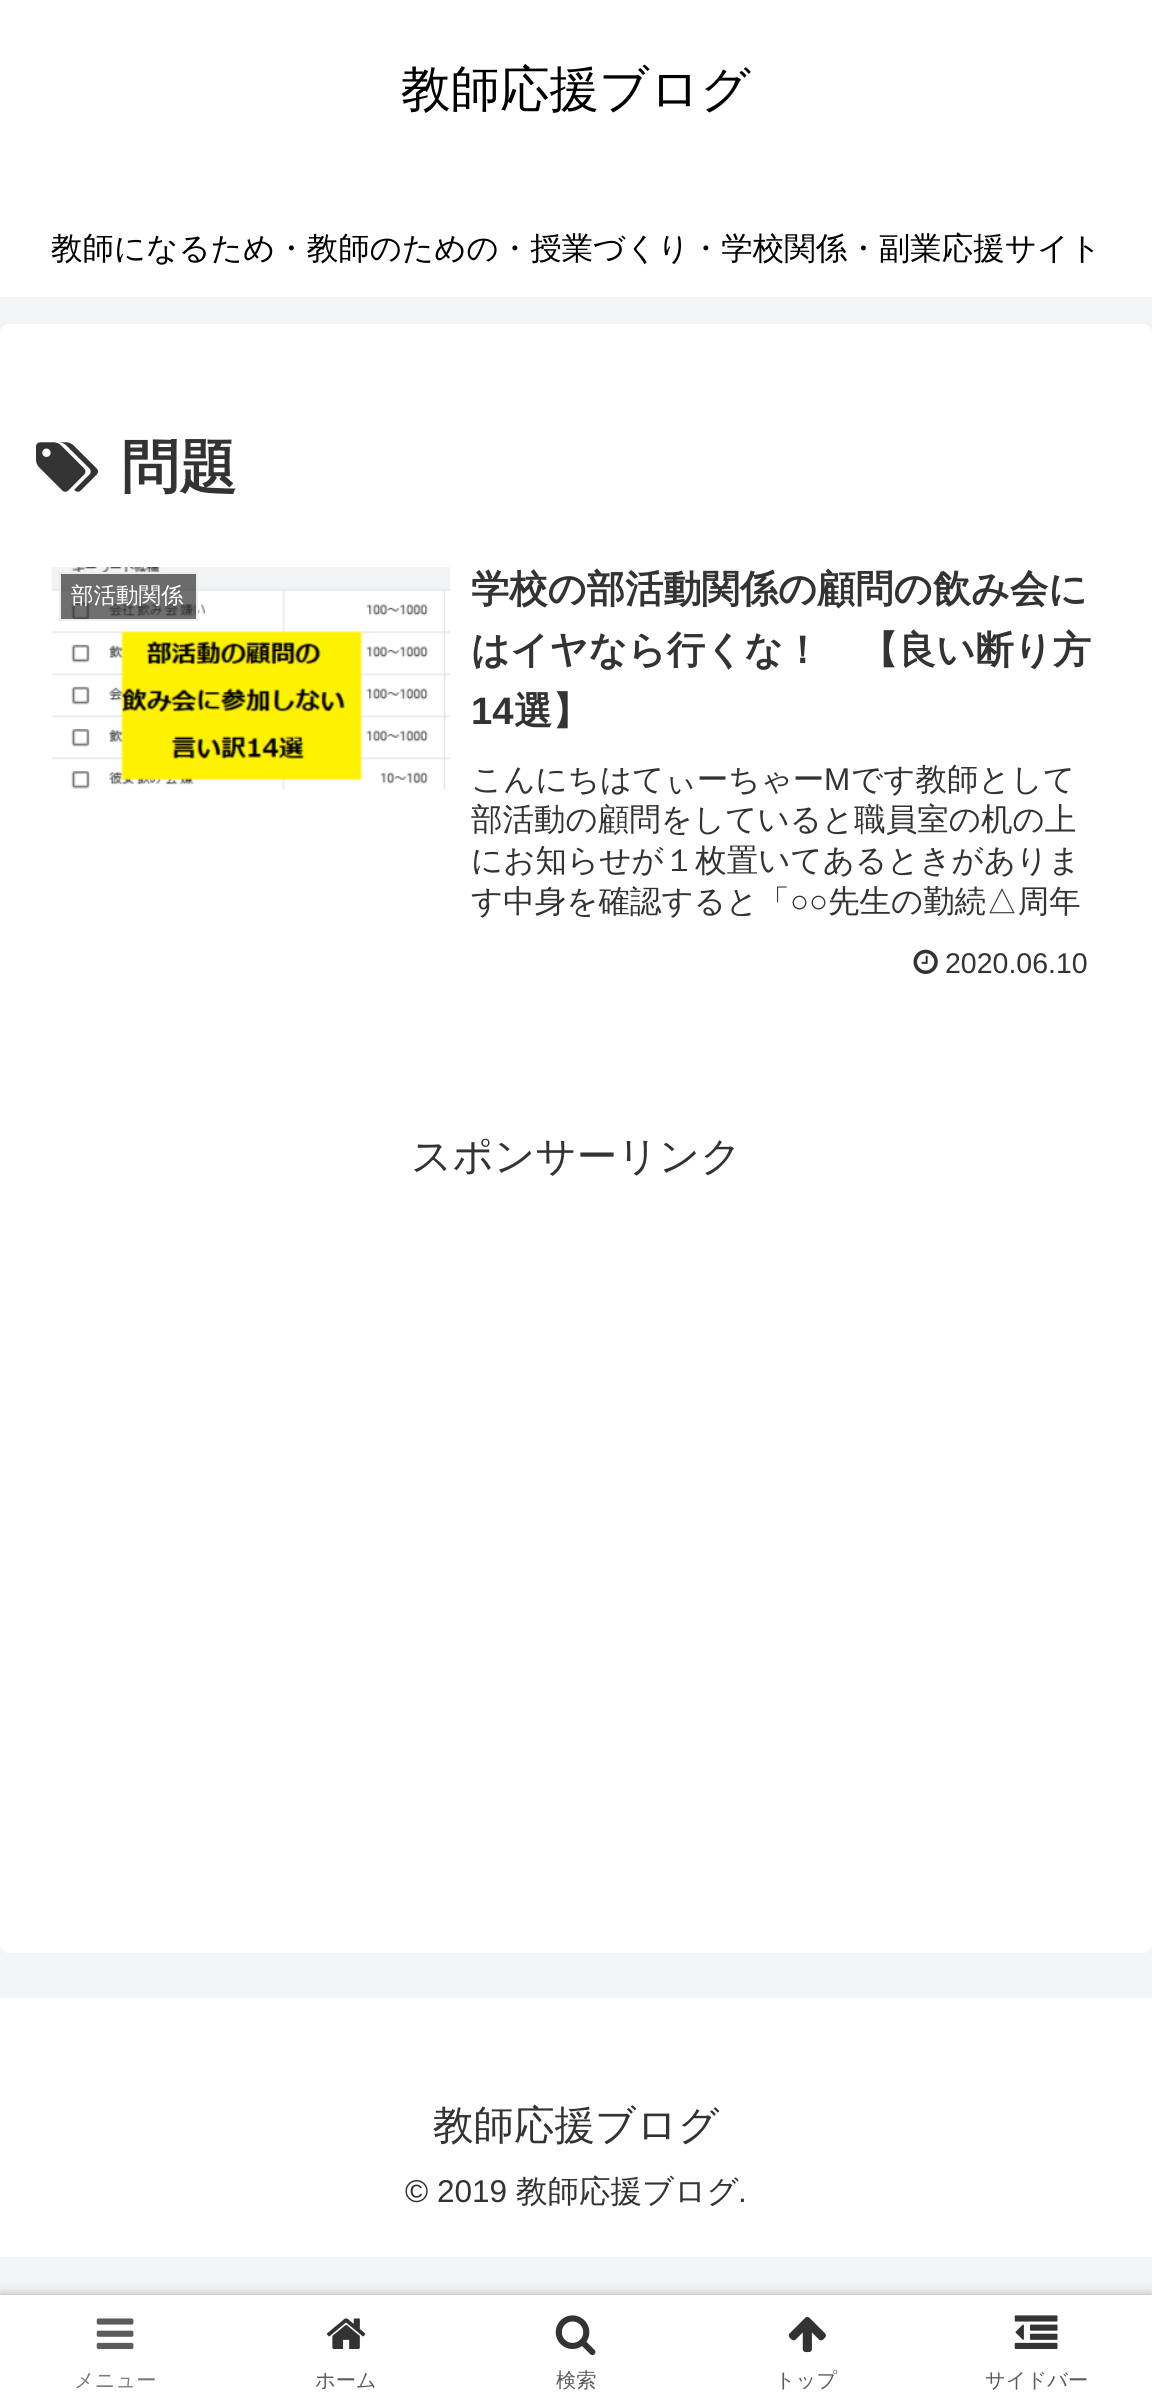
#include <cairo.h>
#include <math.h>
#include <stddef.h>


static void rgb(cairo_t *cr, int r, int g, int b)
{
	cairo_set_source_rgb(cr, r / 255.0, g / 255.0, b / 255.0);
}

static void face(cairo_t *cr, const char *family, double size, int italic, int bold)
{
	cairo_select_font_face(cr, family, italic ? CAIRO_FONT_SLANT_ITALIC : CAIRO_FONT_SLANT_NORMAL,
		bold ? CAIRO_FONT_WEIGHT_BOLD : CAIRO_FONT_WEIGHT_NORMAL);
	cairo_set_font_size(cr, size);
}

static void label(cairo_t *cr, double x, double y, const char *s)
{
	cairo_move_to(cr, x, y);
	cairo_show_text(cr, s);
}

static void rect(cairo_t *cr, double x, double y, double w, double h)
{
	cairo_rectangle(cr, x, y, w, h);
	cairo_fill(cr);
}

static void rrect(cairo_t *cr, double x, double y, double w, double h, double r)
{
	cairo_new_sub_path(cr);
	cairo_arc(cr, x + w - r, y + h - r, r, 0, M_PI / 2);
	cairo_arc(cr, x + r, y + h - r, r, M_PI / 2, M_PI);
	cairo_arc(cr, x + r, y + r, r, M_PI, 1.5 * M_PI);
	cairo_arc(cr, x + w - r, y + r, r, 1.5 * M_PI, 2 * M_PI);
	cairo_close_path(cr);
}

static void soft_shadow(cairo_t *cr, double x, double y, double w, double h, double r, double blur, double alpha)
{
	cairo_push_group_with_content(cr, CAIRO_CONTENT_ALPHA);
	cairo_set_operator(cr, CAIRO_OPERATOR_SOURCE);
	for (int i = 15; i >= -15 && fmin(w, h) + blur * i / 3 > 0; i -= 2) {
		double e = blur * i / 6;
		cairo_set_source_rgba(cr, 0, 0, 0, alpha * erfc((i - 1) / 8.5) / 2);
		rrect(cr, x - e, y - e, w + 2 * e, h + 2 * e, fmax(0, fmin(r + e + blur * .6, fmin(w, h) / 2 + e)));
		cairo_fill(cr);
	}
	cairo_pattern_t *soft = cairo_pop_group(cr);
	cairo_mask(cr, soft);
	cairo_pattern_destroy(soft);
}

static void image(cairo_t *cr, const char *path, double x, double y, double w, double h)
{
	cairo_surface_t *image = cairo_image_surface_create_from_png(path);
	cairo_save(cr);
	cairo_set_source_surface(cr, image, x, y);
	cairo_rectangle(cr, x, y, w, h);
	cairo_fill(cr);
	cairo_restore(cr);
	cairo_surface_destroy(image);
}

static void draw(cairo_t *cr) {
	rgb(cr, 244, 245, 247);
	cairo_paint(cr);
	rgb(cr, 255, 255, 255);
	rect(cr, 0, 0, 1152, 297);
	face(cr, "WenQuanYi Zen Hei Medium", 49.5, 0, 0);
	rgb(cr, 0, 0, 0);
	label(cr, 401, 106, "教師応援ブログ");
	face(cr, "WenQuanYi Zen Hei Medium", 31.5, 0, 0);
	label(cr, 51, 259, "教師になるため・教師のための・授業づくり・学校関係・副業応援サイト");
	rgb(cr, 255, 255, 255);
	rrect(cr, 0, 324, 1152, 1629, 9);
	cairo_fill(cr);
	image(cr, "image0.png", 36, 442, 62, 50);
	face(cr, "WenQuanYi Zen Hei", 58, 0, 1);
	rgb(cr, 51, 51, 51);
	label(cr, 121, 487, "問題");
	image(cr, "image1.png", 51, 567, 399, 223);
	cairo_set_source_rgba(cr, 0.2, 0.2, 0.2, 0.7);
	cairo_rectangle(cr, 60, 573, 137, 47);
	cairo_fill_preserve(cr);
	rgb(cr, 238, 238, 238);
	cairo_stroke(cr);
	face(cr, "WenQuanYi Zen Hei Medium", 22.5, 0, 0);
	rgb(cr, 255, 255, 255);
	label(cr, 71, 603, "部活動関係");
	face(cr, "WenQuanYi Zen Hei", 38.25, 0, 1);
	rgb(cr, 51, 51, 51);
	label(cr, 471, 602, "学校の部活動関係の顧問の飲み会に");
	label(cr, 471, 663, "はイヤなら行くな！　【良い断り方");
	face(cr, "Liberation Sans", 38.25, 0, 1);
	label(cr, 471, 724, "14");
	face(cr, "WenQuanYi Zen Hei", 38.25, 0, 1);
	label(cr, 514, 724, "選】");
	face(cr, "WenQuanYi Zen Hei Medium", 31.5, 0, 0);
	label(cr, 471, 790, "こんにちはてぃーちゃー");
	face(cr, "Liberation Sans", 31.5, 0, 0);
	label(cr, 824, 790, "M");
	face(cr, "WenQuanYi Zen Hei Medium", 31.5, 0, 0);
	label(cr, 851, 790, "です教師として");
	label(cr, 471, 830, "部活動の顧問をしていると職員室の机の上");
	label(cr, 471, 871, "にお知らせが１枚置いてあるときがありま");
	label(cr, 471, 912, "す中身を確認すると「");
	face(cr, "Liberation Sans", 31.5, 0, 0);
	label(cr, 790, 912, "○○");
	face(cr, "WenQuanYi Zen Hei Medium", 31.5, 0, 0);
	label(cr, 828, 912, "先生の勤続△周年");
	image(cr, "image2.png", 913, 949, 25, 25);
	face(cr, "Liberation Sans", 28.5, 0, 0);
	label(cr, 945, 973, "2020.06.10");
	face(cr, "WenQuanYi Zen Hei Medium", 40.5, 0, 0);
	label(cr, 411, 1170, "スポンサーリンク");
	rgb(cr, 255, 255, 255);
	rect(cr, 0, 1998, 1152, 259);
	rgb(cr, 51, 51, 51);
	label(cr, 433, 2139, "教師応援ブログ");
	face(cr, "Liberation Sans", 31.5, 0, 0);
	label(cr, 405, 2202, "© 2019");
	face(cr, "WenQuanYi Zen Hei Medium", 31.5, 0, 0);
	label(cr, 516, 2202, "教師応援ブログ");
	face(cr, "Liberation Sans", 31.5, 0, 0);
	label(cr, 738, 2202, ".");
	rgb(cr, 169, 169, 169);
	soft_shadow(cr, 0, 2295, 1152, 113, 0, 5.5, 1);
	rgb(cr, 255, 255, 255);
	rect(cr, 0, 2295, 1152, 111);
	image(cr, "image3.png", 96, 2318, 38, 31);
	face(cr, "WenQuanYi Zen Hei Medium", 20.25, 0, 0);
	rgb(cr, 124, 124, 124);
	label(cr, 74, 2387, "メニュー");
	image(cr, "image4.png", 326, 2318, 40, 31);
	rgb(cr, 92, 92, 92);
	label(cr, 315, 2387, "ホーム");
	image(cr, "image5.png", 555, 2315, 41, 41);
	label(cr, 556, 2387, "検索");
	image(cr, "image6.png", 788, 2316, 38, 37);
	label(cr, 775, 2387, "トップ");
	image(cr, "image7.png", 1014, 2315, 44, 34);
	label(cr, 985, 2387, "サイドバー");
}

int main(void) {
	cairo_surface_t *surface = cairo_image_surface_create(CAIRO_FORMAT_RGB24, 1152, 2406);
	cairo_t *cr = cairo_create(surface);
	cairo_font_options_t *options = cairo_font_options_create();
	cairo_font_options_set_hint_metrics(options, CAIRO_HINT_METRICS_OFF);
	cairo_font_options_set_hint_style(options, CAIRO_HINT_STYLE_NONE);
	cairo_set_font_options(cr, options);
	cairo_set_miter_limit(cr, 4);
	draw(cr);
	cairo_surface_write_to_png(surface, "render.png");
	cairo_font_options_destroy(options);
	cairo_destroy(cr);
	cairo_surface_destroy(surface);
	return 0;
}
